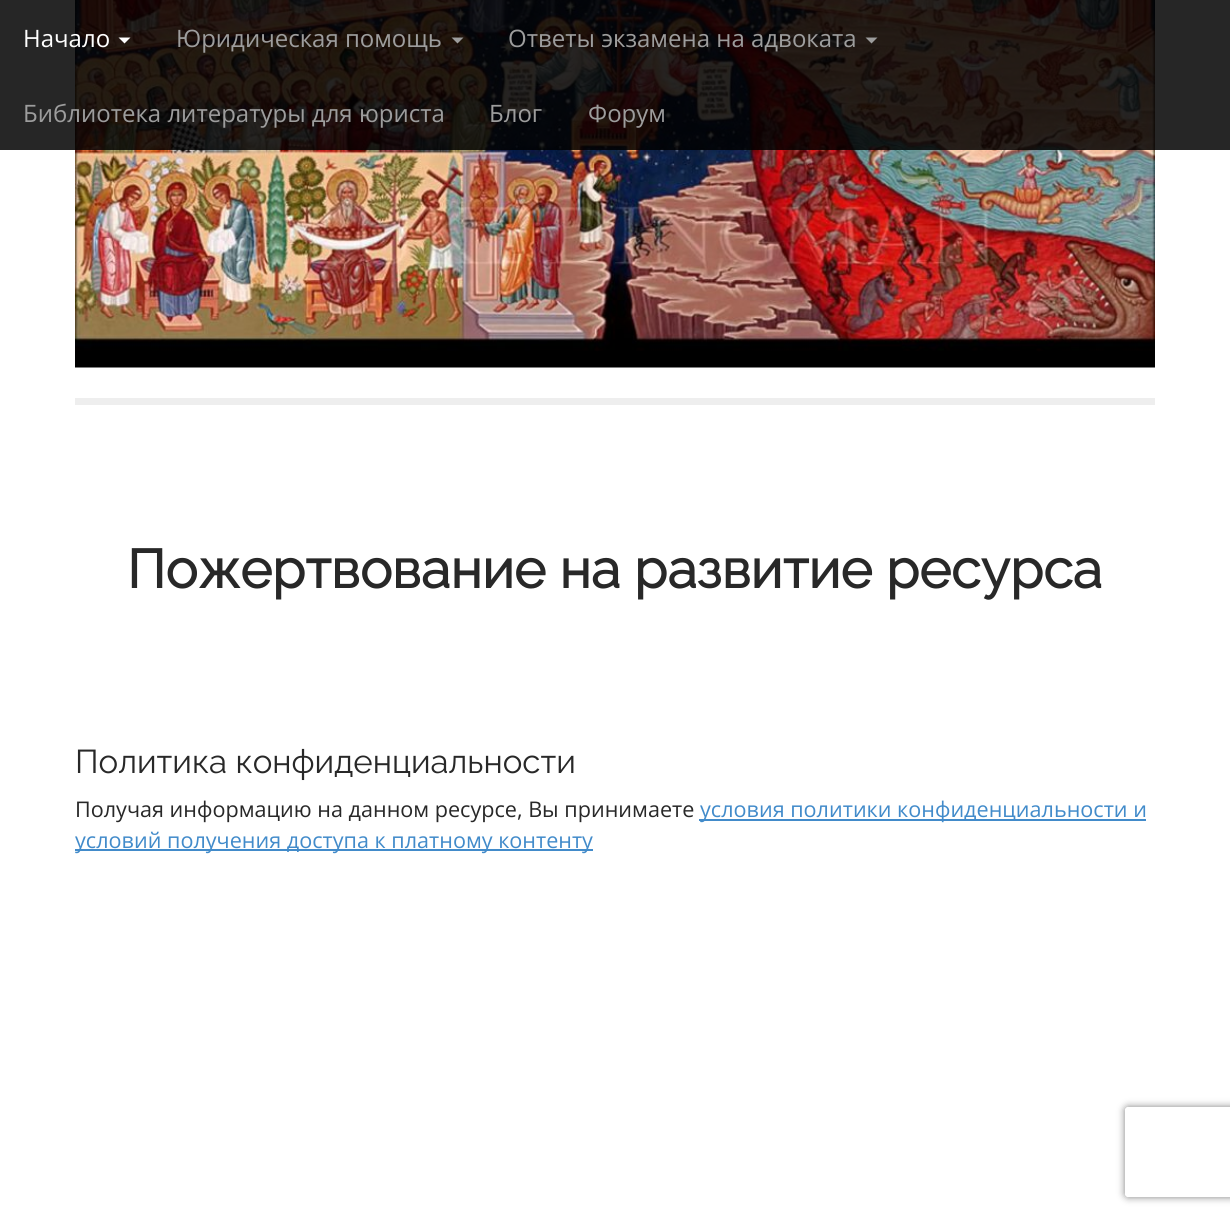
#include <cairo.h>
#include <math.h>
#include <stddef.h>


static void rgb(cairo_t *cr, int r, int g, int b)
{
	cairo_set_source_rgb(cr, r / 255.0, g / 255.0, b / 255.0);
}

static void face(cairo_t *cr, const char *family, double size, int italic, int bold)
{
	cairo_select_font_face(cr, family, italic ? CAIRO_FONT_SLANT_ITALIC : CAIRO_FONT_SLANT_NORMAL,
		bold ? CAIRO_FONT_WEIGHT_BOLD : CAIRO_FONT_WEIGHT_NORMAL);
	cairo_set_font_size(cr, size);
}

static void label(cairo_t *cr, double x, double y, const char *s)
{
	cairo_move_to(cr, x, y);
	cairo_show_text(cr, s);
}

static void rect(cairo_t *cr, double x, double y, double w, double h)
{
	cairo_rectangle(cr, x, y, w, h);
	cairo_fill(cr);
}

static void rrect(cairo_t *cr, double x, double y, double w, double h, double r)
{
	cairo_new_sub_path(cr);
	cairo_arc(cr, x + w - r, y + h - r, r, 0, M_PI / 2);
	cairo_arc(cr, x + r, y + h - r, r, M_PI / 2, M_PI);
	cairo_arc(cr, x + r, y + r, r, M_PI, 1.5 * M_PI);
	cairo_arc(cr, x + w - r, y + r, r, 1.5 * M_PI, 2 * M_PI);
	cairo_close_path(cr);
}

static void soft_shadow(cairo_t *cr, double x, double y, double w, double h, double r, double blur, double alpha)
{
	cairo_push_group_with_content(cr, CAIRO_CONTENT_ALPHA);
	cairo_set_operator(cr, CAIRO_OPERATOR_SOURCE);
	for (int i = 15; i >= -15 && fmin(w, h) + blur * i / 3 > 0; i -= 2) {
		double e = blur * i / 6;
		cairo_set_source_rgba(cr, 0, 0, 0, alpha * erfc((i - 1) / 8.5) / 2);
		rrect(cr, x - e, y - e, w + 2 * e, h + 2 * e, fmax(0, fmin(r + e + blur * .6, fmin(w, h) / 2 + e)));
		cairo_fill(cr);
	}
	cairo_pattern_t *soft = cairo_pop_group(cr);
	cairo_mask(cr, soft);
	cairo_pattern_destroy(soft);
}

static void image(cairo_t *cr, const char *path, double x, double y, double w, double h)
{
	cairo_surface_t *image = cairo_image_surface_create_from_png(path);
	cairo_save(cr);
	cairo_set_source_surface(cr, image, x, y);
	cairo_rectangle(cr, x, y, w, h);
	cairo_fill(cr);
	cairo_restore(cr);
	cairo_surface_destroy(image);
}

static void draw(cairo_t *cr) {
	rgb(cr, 255, 255, 255);
	cairo_paint(cr);
	image(cr, "image0.png", 75, 0, 1080, 368);
	cairo_set_source_rgba(cr, 0, 0, 0, 0.85);
	rect(cr, 0, 0, 1230, 150);
	face(cr, "Open Sans", 24, 0, 0);
	rgb(cr, 255, 255, 255);
	label(cr, 23, 47, "Начало");
	cairo_new_path(cr);
	cairo_move_to(cr, 118.5, 37.5);
	cairo_line_to(cr, 130.5, 37.5);
	cairo_line_to(cr, 124.5, 43.5);
	cairo_close_path(cr);
	cairo_fill(cr);
	rgb(cr, 157, 157, 157);
	label(cr, 176, 47, "Юридическая помощь");
	cairo_new_path(cr);
	cairo_move_to(cr, 451.5, 37.5);
	cairo_line_to(cr, 463.5, 37.5);
	cairo_line_to(cr, 457.5, 43.5);
	cairo_close_path(cr);
	cairo_fill(cr);
	label(cr, 508, 47, "Ответы экзамена на адвоката");
	cairo_new_path(cr);
	cairo_move_to(cr, 865.5, 37.5);
	cairo_line_to(cr, 877.5, 37.5);
	cairo_line_to(cr, 871.5, 43.5);
	cairo_close_path(cr);
	cairo_fill(cr);
	label(cr, 23, 122, "Библиотека литературы для юриста");
	label(cr, 489, 122, "Блог");
	label(cr, 588, 122, "Форум");
	rgb(cr, 238, 238, 238);
	rect(cr, 75, 398, 1080, 7);
	face(cr, "Raleway", 54, 0, 1);
	rgb(cr, 40, 40, 40);
	label(cr, 127, 588, "Пожертвование на развитие ресурса");
	face(cr, "Raleway Thin", 33, 0, 0);
	label(cr, 75, 773, "Политика конфиденциальности");
	face(cr, "Open Sans", 21.6, 0, 0);
	label(cr, 75, 817, "Получая информацию на данном ресурсе, Вы принимаете");
	rgb(cr, 66, 139, 202);
	rect(cr, 699, 819, 447, 2);
	label(cr, 700, 817, "условия политики конфиденциальности и");
	rect(cr, 75, 849, 518, 2);
	label(cr, 75, 848, "условий получения доступа к платному контенту");
	cairo_save(cr);
	cairo_set_fill_rule(cr, CAIRO_FILL_RULE_EVEN_ODD);
	cairo_new_path(cr);
	cairo_move_to(cr, 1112, 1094);
	cairo_line_to(cr, 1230, 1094);
	cairo_line_to(cr, 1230, 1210);
	cairo_line_to(cr, 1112, 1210);
	cairo_close_path(cr);
	cairo_move_to(cr, 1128, 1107);
	cairo_line_to(cr, 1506, 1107);
	cairo_curve_to(cr, 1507.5, 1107, 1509, 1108.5, 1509, 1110);
	cairo_line_to(cr, 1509, 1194);
	cairo_curve_to(cr, 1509, 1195.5, 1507.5, 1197, 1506, 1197);
	cairo_line_to(cr, 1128, 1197);
	cairo_curve_to(cr, 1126.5, 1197, 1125, 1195.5, 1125, 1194);
	cairo_line_to(cr, 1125, 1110);
	cairo_curve_to(cr, 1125, 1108.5, 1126.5, 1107, 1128, 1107);
	cairo_close_path(cr);
	cairo_clip(cr);
	rgb(cr, 128, 128, 128);
	soft_shadow(cr, 1125, 1107, 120, 90, 3, 4, 1);
	cairo_restore(cr);
}

int main(void) {
	cairo_surface_t *surface = cairo_image_surface_create(CAIRO_FORMAT_RGB24, 1230, 1217);
	cairo_t *cr = cairo_create(surface);
	cairo_font_options_t *options = cairo_font_options_create();
	cairo_font_options_set_hint_metrics(options, CAIRO_HINT_METRICS_OFF);
	cairo_font_options_set_hint_style(options, CAIRO_HINT_STYLE_NONE);
	cairo_set_font_options(cr, options);
	cairo_set_miter_limit(cr, 4);
	draw(cr);
	cairo_surface_write_to_png(surface, "render.png");
	cairo_font_options_destroy(options);
	cairo_destroy(cr);
	cairo_surface_destroy(surface);
	return 0;
}
